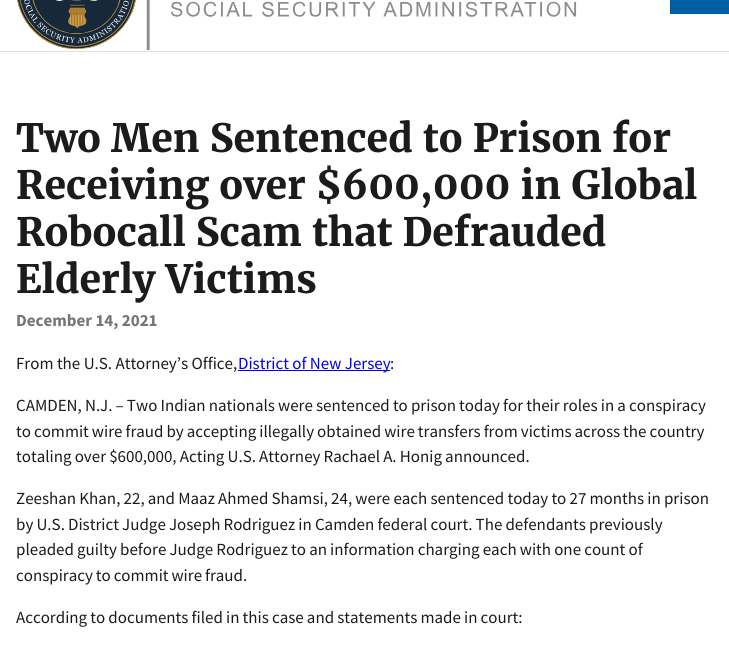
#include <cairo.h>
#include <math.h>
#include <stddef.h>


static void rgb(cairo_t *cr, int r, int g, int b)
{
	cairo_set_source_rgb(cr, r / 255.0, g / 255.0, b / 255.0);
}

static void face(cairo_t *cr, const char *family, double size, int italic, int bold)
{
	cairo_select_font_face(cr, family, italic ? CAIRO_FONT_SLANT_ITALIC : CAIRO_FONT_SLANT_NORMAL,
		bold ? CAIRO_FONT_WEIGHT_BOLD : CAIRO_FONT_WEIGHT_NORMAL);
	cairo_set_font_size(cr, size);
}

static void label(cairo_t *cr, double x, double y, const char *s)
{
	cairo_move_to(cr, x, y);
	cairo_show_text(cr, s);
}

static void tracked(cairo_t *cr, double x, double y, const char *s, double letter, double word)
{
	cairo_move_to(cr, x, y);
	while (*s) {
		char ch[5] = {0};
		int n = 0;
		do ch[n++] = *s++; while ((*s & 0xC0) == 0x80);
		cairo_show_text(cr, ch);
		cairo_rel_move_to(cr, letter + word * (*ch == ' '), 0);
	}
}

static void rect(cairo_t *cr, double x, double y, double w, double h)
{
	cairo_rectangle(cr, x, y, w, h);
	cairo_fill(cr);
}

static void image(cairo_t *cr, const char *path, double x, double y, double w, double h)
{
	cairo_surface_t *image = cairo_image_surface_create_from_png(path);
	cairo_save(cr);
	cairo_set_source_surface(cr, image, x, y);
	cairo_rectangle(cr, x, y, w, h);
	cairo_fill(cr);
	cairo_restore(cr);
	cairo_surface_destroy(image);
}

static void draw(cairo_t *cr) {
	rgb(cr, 255, 255, 255);
	cairo_paint(cr);
	rgb(cr, 223, 225, 226);
	rect(cr, 0, 51, 729, 1);
	image(cr, "image0.png", 17, 0, 560, 50);
	rgb(cr, 0, 94, 162);
	rect(cr, 670, 0, 59, 14);
	face(cr, "Merriweather", 39, 0, 1);
	rgb(cr, 27, 27, 27);
	label(cr, 16, 152, "Two Men Sentenced to Prison for");
	label(cr, 16, 199, "Receiving over $600,000 in Global");
	label(cr, 16, 246, "Robocall Scam that Defrauded");
	label(cr, 16, 293, "Elderly Victims");
	face(cr, "Source Sans Pro", 16.95, 0, 1);
	rgb(cr, 113, 118, 122);
	label(cr, 16, 326, "December 14, 2021");
	face(cr, "Source Sans Pro", 16.95, 0, 0);
	rgb(cr, 27, 27, 27);
	label(cr, 16, 369, "From the U.S. Attorney’s Office,");
	rgb(cr, 0, 0, 238);
	rect(cr, 238, 370, 152, 1);
	label(cr, 238, 369, "District of New Jersey");
	rgb(cr, 27, 27, 27);
	label(cr, 390, 369, ":");
	tracked(cr, 16, 411, "CAMDEN, N.J. – Two Indian nationals were sentenced to prison today for their roles in a conspiracy", 0, -0.25);
	tracked(cr, 16, 437, "to commit wire fraud by accepting illegally obtained wire transfers from victims across the country", 0, -0.4);
	tracked(cr, 16, 462, "totaling over $600,000, Acting U.S. Attorney Rachael A. Honig announced.", 0, -0.25);
	tracked(cr, 16, 504, "Zeeshan Khan, 22, and Maaz Ahmed Shamsi, 24, were each sentenced today to 27 months in prison", 0, -0.2);
	tracked(cr, 16, 530, "by U.S. District Judge Joseph Rodriguez in Camden federal court. The defendants previously", 0, -0.25);
	tracked(cr, 16, 555, "pleaded guilty before Judge Rodriguez to an information charging each with one count of", 0, -0.25);
	tracked(cr, 16, 581, "conspiracy to commit wire fraud.", 0, -0.5);
	tracked(cr, 16, 623, "According to documents filed in this case and statements made in court:", 0, -0.25);
}

int main(void) {
	cairo_surface_t *surface = cairo_image_surface_create(CAIRO_FORMAT_RGB24, 729, 660);
	cairo_t *cr = cairo_create(surface);
	cairo_font_options_t *options = cairo_font_options_create();
	cairo_font_options_set_hint_metrics(options, CAIRO_HINT_METRICS_OFF);
	cairo_font_options_set_hint_style(options, CAIRO_HINT_STYLE_NONE);
	cairo_set_font_options(cr, options);
	cairo_set_miter_limit(cr, 4);
	draw(cr);
	cairo_surface_write_to_png(surface, "render.png");
	cairo_font_options_destroy(options);
	cairo_destroy(cr);
	cairo_surface_destroy(surface);
	return 0;
}
